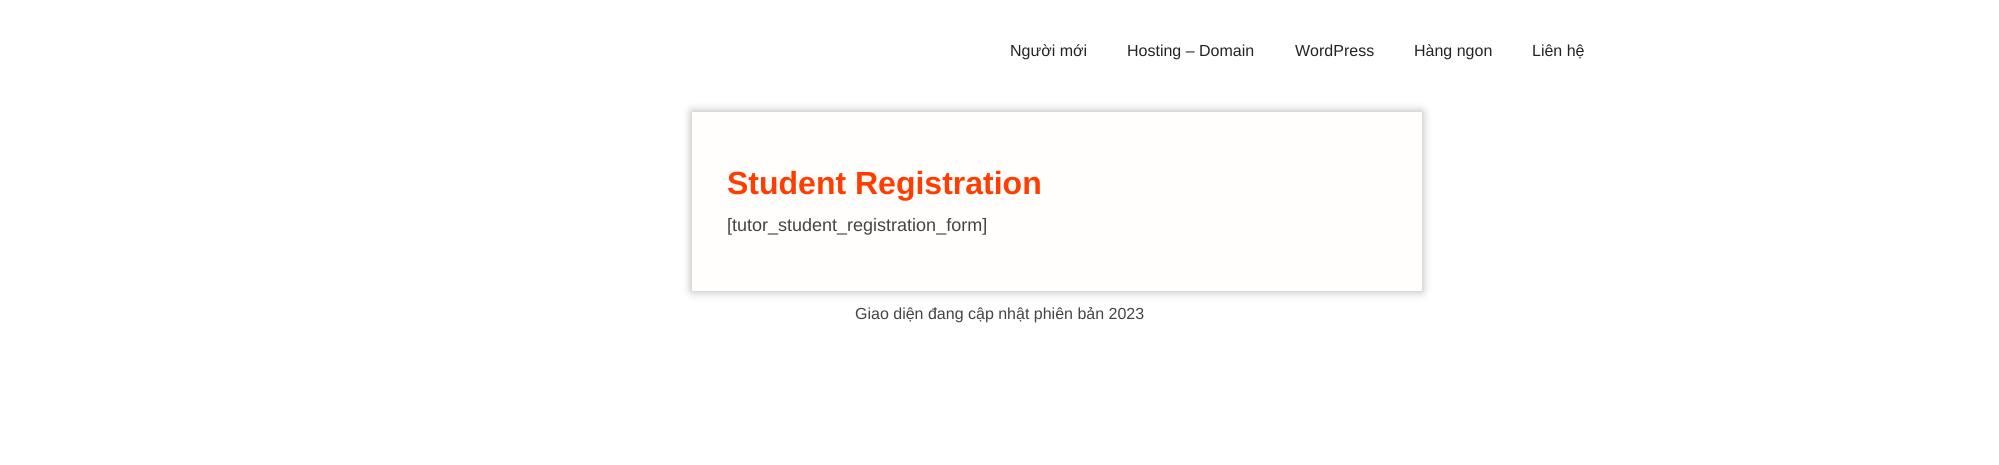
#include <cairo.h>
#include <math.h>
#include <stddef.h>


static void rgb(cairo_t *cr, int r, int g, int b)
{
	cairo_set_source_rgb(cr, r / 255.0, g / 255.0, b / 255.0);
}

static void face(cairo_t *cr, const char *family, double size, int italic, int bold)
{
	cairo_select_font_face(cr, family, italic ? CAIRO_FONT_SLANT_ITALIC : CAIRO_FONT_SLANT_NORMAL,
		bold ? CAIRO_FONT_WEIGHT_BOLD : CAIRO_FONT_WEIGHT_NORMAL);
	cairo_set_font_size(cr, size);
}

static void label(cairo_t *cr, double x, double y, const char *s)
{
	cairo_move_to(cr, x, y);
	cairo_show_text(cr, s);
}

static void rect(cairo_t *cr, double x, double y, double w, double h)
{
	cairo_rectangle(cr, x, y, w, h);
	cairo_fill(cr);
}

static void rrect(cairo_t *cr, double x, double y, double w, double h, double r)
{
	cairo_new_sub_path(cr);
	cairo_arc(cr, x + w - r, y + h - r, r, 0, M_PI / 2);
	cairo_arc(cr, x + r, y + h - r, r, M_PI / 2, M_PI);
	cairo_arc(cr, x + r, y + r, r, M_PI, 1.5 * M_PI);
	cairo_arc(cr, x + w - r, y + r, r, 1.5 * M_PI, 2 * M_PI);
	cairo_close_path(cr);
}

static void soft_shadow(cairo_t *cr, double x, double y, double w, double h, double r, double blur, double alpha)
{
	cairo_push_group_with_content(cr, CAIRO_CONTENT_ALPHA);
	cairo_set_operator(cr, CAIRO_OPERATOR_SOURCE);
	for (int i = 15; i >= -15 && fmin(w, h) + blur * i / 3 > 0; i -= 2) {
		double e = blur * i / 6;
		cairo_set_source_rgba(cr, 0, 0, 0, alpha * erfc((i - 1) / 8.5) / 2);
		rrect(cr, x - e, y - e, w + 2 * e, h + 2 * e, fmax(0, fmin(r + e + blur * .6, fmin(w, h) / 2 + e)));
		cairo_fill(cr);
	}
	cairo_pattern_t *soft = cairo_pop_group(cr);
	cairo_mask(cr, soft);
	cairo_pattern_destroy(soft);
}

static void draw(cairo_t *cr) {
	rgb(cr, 255, 255, 255);
	cairo_paint(cr);
	face(cr, "Liberation Sans", 16, 0, 0);
	rgb(cr, 33, 36, 39);
	label(cr, 1010, 56, "Người mới");
	label(cr, 1127, 56, "Hosting – Domain");
	label(cr, 1295, 56, "WordPress");
	label(cr, 1414, 56, "Hàng ngon");
	label(cr, 1532, 56, "Liên hệ");
	rgb(cr, 0, 0, 0);
	soft_shadow(cr, 692, 112, 730, 179, 0, 5, 0.32);
	rgb(cr, 255, 254, 252);
	rect(cr, 692, 112, 730, 179);
	face(cr, "Liberation Sans", 32, 0, 1);
	rgb(cr, 255, 61, 0);
	label(cr, 727, 194, "Student Registration");
	face(cr, "Liberation Sans", 18, 0, 0);
	rgb(cr, 68, 68, 68);
	label(cr, 727, 231, "[tutor_student_registration_form]");
	face(cr, "Liberation Sans", 16, 0, 0);
	label(cr, 855, 319, "Giao diện đang cập nhật phiên bản 2023");
}

int main(void) {
	cairo_surface_t *surface = cairo_image_surface_create(CAIRO_FORMAT_RGB24, 1999, 465);
	cairo_t *cr = cairo_create(surface);
	cairo_font_options_t *options = cairo_font_options_create();
	cairo_font_options_set_hint_metrics(options, CAIRO_HINT_METRICS_OFF);
	cairo_font_options_set_hint_style(options, CAIRO_HINT_STYLE_NONE);
	cairo_set_font_options(cr, options);
	cairo_set_miter_limit(cr, 4);
	draw(cr);
	cairo_surface_write_to_png(surface, "render.png");
	cairo_font_options_destroy(options);
	cairo_destroy(cr);
	cairo_surface_destroy(surface);
	return 0;
}
